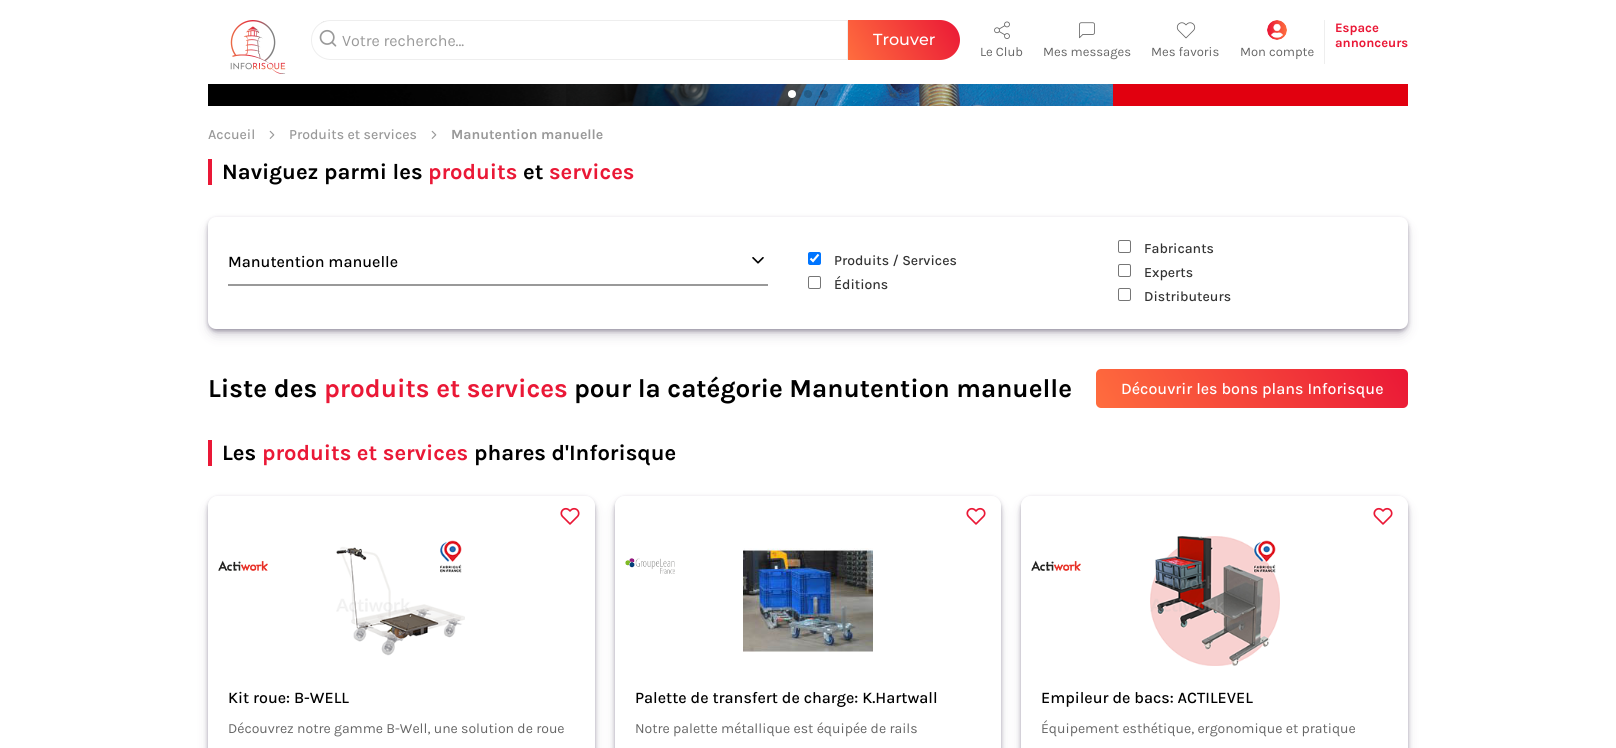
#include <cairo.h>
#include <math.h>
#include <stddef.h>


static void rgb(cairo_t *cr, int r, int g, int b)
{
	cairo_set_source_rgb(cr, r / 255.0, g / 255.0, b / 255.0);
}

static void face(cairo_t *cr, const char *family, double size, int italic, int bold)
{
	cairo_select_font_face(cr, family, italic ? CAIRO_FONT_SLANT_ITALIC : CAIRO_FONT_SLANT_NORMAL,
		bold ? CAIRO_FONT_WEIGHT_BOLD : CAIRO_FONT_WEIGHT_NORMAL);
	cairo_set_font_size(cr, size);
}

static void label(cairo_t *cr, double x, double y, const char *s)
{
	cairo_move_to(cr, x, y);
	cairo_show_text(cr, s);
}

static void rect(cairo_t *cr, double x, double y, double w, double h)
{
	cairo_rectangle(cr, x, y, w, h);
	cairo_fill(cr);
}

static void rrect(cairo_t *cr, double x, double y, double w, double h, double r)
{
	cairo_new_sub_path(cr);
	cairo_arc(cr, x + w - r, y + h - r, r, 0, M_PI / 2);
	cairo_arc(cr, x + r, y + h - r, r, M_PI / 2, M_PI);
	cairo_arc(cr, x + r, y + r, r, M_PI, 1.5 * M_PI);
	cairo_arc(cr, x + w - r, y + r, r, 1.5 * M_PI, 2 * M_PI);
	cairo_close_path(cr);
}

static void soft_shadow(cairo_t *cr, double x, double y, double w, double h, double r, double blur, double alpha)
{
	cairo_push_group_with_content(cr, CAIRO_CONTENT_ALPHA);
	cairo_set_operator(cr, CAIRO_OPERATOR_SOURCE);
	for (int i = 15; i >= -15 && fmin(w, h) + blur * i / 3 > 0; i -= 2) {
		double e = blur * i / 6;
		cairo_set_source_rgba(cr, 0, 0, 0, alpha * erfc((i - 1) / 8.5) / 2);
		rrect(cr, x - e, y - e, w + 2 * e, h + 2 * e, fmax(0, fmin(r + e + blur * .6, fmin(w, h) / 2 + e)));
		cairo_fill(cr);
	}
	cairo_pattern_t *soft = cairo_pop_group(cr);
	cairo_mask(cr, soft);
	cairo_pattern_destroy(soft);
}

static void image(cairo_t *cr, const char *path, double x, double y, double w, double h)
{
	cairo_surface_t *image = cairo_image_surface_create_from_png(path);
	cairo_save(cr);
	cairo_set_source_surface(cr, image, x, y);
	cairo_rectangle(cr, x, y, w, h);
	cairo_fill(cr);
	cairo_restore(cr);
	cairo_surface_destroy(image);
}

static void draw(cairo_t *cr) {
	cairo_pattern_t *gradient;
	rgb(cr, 255, 255, 255);
	cairo_paint(cr);
	image(cr, "image0.png", 230, 20, 56, 54);
	image(cr, "image1.png", 319, 21, 9, 5);
	rgb(cr, 255, 255, 255);
	cairo_new_path(cr);
	cairo_move_to(cr, 331, 20.5);
	cairo_line_to(cr, 847.5, 20.5);
	cairo_line_to(cr, 847.5, 59.5);
	cairo_line_to(cr, 331, 59.5);
	cairo_curve_to(cr, 320, 59.5, 311.5, 51, 311.5, 40);
	cairo_curve_to(cr, 311.5, 29, 320, 20.5, 331, 20.5);
	cairo_close_path(cr);
	cairo_fill_preserve(cr);
	rgb(cr, 238, 238, 238);
	cairo_set_line_width(cr, 1);
	cairo_stroke(cr);
	image(cr, "image2.png", 319, 29, 18, 18);
	face(cr, "Karla", 16, 0, 0);
	rgb(cr, 153, 153, 153);
	label(cr, 342, 46, "Votre recherche...");
	gradient = cairo_pattern_create_linear(955, 11, 853, 69);
	cairo_pattern_add_color_stop_rgba(gradient, 0, 0.918, 0.094, 0.212, 1);
	cairo_pattern_add_color_stop_rgba(gradient, 1, 1, 0.427, 0.243, 1);
	cairo_set_source(cr, gradient);
	cairo_pattern_destroy(gradient);
	cairo_new_path(cr);
	cairo_move_to(cr, 848, 20);
	cairo_line_to(cr, 940, 20);
	cairo_curve_to(cr, 951, 20, 960, 29, 960, 40);
	cairo_curve_to(cr, 960, 51, 951, 60, 940, 60);
	cairo_line_to(cr, 848, 60);
	cairo_close_path(cr);
	cairo_fill(cr);
	face(cr, "Montserrat Medium", 16, 0, 0);
	rgb(cr, 255, 255, 255);
	label(cr, 873, 45, "Trouver");
	rgb(cr, 238, 238, 238);
	rect(cr, 1324, 20, 1, 44);
	face(cr, "Karla", 13, 0, 1);
	rgb(cr, 234, 24, 54);
	label(cr, 1335, 32, "Espace");
	label(cr, 1335, 47, "annonceurs");
	image(cr, "image3.png", 994, 21, 16, 18);
	face(cr, "Karla", 13, 0, 0);
	rgb(cr, 102, 102, 102);
	label(cr, 980, 56, "Le Club");
	image(cr, "image4.png", 1079, 22, 16, 17);
	label(cr, 1043, 56, "Mes messages");
	image(cr, "image5.png", 1176, 22, 20, 17);
	label(cr, 1151, 56, "Mes favoris");
	image(cr, "image6.png", 1267, 20, 20, 20);
	label(cr, 1240, 56, "Mon compte");
	image(cr, "image7.png", 208, 84, 1200, 22);
	rgb(cr, 255, 255, 255);
	cairo_arc(cr, 792, 94, 4, 0, 2 * M_PI);
	cairo_fill(cr);
	cairo_set_source_rgba(cr, 0, 0, 0, 0.2);
	cairo_arc(cr, 808, 94, 4, 0, 2 * M_PI);
	cairo_fill(cr);
	cairo_arc(cr, 824, 94, 4, 0, 2 * M_PI);
	cairo_fill(cr);
	face(cr, "Karla Medium", 14, 0, 0);
	rgb(cr, 153, 153, 153);
	label(cr, 208, 139, "Accueil");
	image(cr, "image8.png", 269, 130, 6, 9);
	label(cr, 289, 139, "Produits et services");
	image(cr, "image8.png", 431, 130, 6, 9);
	face(cr, "Karla", 14, 0, 1);
	label(cr, 451, 139, "Manutention manuelle");
	rgb(cr, 234, 24, 54);
	rect(cr, 208, 159, 4, 26);
	face(cr, "Karla", 22, 0, 1);
	rgb(cr, 0, 0, 0);
	label(cr, 222, 179, "Naviguez parmi les");
	rgb(cr, 234, 24, 54);
	label(cr, 428, 179, "produits");
	rgb(cr, 0, 0, 0);
	label(cr, 523, 179, "et");
	rgb(cr, 234, 24, 54);
	label(cr, 549, 179, "services");
	rgb(cr, 45, 35, 66);
	soft_shadow(cr, 211, 227, 1194, 106, 5, 6.5, 0.25);
	soft_shadow(cr, 208, 219, 1200, 112, 8, 2, 0.35);
	rgb(cr, 255, 255, 255);
	rrect(cr, 208, 217, 1200, 112, 8);
	cairo_fill(cr);
	rgb(cr, 153, 153, 153);
	rect(cr, 228, 284, 540, 2);
	face(cr, "Karla Medium", 16, 0, 0);
	rgb(cr, 0, 0, 0);
	label(cr, 228, 267, "Manutention manuelle");
	image(cr, "image9.png", 752, 257, 12, 7);
	rgb(cr, 0, 117, 255);
	rrect(cr, 808, 252, 13, 13, 2);
	cairo_fill(cr);
	cairo_new_path(cr);
	cairo_move_to(cr, 810.5, 258.5);
	cairo_line_to(cr, 813, 261);
	cairo_line_to(cr, 818.5, 254.5);
	rgb(cr, 255, 255, 255);
	cairo_set_line_width(cr, 2.1);
	cairo_stroke(cr);
	face(cr, "Karla Medium", 14, 0, 0);
	rgb(cr, 51, 51, 51);
	label(cr, 834, 265, "Produits / Services");
	rrect(cr, 808.5, 276.5, 12, 12, 1.5);
	rgb(cr, 118, 118, 118);
	cairo_set_line_width(cr, 1);
	cairo_stroke(cr);
	rgb(cr, 51, 51, 51);
	label(cr, 834, 289, "Éditions");
	rrect(cr, 1118.5, 240.5, 12, 12, 1.5);
	rgb(cr, 118, 118, 118);
	cairo_stroke(cr);
	rgb(cr, 51, 51, 51);
	label(cr, 1144, 253, "Fabricants");
	rrect(cr, 1118.5, 264.5, 12, 12, 1.5);
	rgb(cr, 118, 118, 118);
	cairo_stroke(cr);
	rgb(cr, 51, 51, 51);
	label(cr, 1144, 277, "Experts");
	rrect(cr, 1118.5, 288.5, 12, 12, 1.5);
	rgb(cr, 118, 118, 118);
	cairo_stroke(cr);
	rgb(cr, 51, 51, 51);
	label(cr, 1144, 301, "Distributeurs");
	face(cr, "Karla", 26, 0, 1);
	rgb(cr, 0, 0, 0);
	label(cr, 208, 397, "Liste des");
	rgb(cr, 234, 24, 54);
	label(cr, 324, 397, "produits et services");
	rgb(cr, 0, 0, 0);
	label(cr, 574, 397, "pour la catégorie Manutention manuelle");
	gradient = cairo_pattern_create_linear(1377, 316, 1127, 461);
	cairo_pattern_add_color_stop_rgba(gradient, 0, 0.918, 0.094, 0.212, 1);
	cairo_pattern_add_color_stop_rgba(gradient, 1, 1, 0.427, 0.243, 1);
	cairo_set_source(cr, gradient);
	cairo_pattern_destroy(gradient);
	rrect(cr, 1096, 369, 312, 39, 5);
	cairo_fill(cr);
	face(cr, "Karla Medium", 16, 0, 0);
	rgb(cr, 255, 255, 255);
	label(cr, 1121, 394, "Découvrir les bons plans Inforisque");
	rgb(cr, 234, 24, 54);
	rect(cr, 208, 440, 4, 26);
	face(cr, "Karla", 22, 0, 1);
	rgb(cr, 0, 0, 0);
	label(cr, 222, 460, "Les");
	rgb(cr, 234, 24, 54);
	label(cr, 262, 460, "produits et services");
	rgb(cr, 0, 0, 0);
	label(cr, 474, 460, "phares d'Inforisque");
	cairo_save(cr);
	cairo_set_fill_rule(cr, CAIRO_FILL_RULE_EVEN_ODD);
	cairo_new_path(cr);
	cairo_move_to(cr, 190, 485);
	cairo_line_to(cr, 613, 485);
	cairo_line_to(cr, 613, 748);
	cairo_line_to(cr, 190, 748);
	cairo_close_path(cr);
	cairo_move_to(cr, 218, 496);
	cairo_line_to(cr, 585, 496);
	cairo_curve_to(cr, 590.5, 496, 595, 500.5, 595, 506);
	cairo_line_to(cr, 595, 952);
	cairo_curve_to(cr, 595, 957.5, 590.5, 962, 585, 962);
	cairo_line_to(cr, 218, 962);
	cairo_curve_to(cr, 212.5, 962, 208, 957.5, 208, 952);
	cairo_line_to(cr, 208, 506);
	cairo_curve_to(cr, 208, 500.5, 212.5, 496, 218, 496);
	cairo_close_path(cr);
	cairo_clip(cr);
	rgb(cr, 45, 35, 66);
	soft_shadow(cr, 211, 506, 381, 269, 7, 6.5, 0.25);
	cairo_restore(cr);
	cairo_save(cr);
	cairo_set_fill_rule(cr, CAIRO_FILL_RULE_EVEN_ODD);
	cairo_new_path(cr);
	cairo_move_to(cr, 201, 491);
	cairo_line_to(cr, 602, 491);
	cairo_line_to(cr, 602, 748);
	cairo_line_to(cr, 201, 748);
	cairo_close_path(cr);
	cairo_move_to(cr, 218, 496);
	cairo_line_to(cr, 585, 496);
	cairo_curve_to(cr, 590.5, 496, 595, 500.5, 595, 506);
	cairo_line_to(cr, 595, 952);
	cairo_curve_to(cr, 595, 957.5, 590.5, 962, 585, 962);
	cairo_line_to(cr, 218, 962);
	cairo_curve_to(cr, 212.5, 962, 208, 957.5, 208, 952);
	cairo_line_to(cr, 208, 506);
	cairo_curve_to(cr, 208, 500.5, 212.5, 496, 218, 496);
	cairo_close_path(cr);
	cairo_clip(cr);
	rgb(cr, 45, 35, 66);
	soft_shadow(cr, 208, 498, 387, 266, 10, 2, 0.35);
	cairo_restore(cr);
	image(cr, "image10.png", 560, 507, 20, 18);
	image(cr, "image11.png", 218, 560, 50, 12);
	image(cr, "image12.png", 336, 540, 129, 116);
	face(cr, "Karla Medium", 16, 0, 0);
	label(cr, 228, 703, "Kit roue: B-WELL");
	face(cr, "Karla", 14, 0, 0);
	rgb(cr, 102, 102, 102);
	label(cr, 228, 733, "Découvrez notre gamme B-Well, une solution de roue");
	cairo_save(cr);
	cairo_set_fill_rule(cr, CAIRO_FILL_RULE_EVEN_ODD);
	cairo_new_path(cr);
	cairo_move_to(cr, 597, 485);
	cairo_line_to(cr, 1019, 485);
	cairo_line_to(cr, 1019, 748);
	cairo_line_to(cr, 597, 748);
	cairo_close_path(cr);
	cairo_move_to(cr, 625, 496);
	cairo_line_to(cr, 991, 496);
	cairo_curve_to(cr, 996.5, 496, 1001, 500.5, 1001, 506);
	cairo_line_to(cr, 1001, 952);
	cairo_curve_to(cr, 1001, 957.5, 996.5, 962, 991, 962);
	cairo_line_to(cr, 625, 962);
	cairo_curve_to(cr, 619.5, 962, 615, 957.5, 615, 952);
	cairo_line_to(cr, 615, 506);
	cairo_curve_to(cr, 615, 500.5, 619.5, 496, 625, 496);
	cairo_close_path(cr);
	cairo_clip(cr);
	rgb(cr, 45, 35, 66);
	soft_shadow(cr, 618, 506, 380, 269, 7, 6.5, 0.25);
	cairo_restore(cr);
	cairo_save(cr);
	cairo_set_fill_rule(cr, CAIRO_FILL_RULE_EVEN_ODD);
	cairo_new_path(cr);
	cairo_move_to(cr, 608, 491);
	cairo_line_to(cr, 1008, 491);
	cairo_line_to(cr, 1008, 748);
	cairo_line_to(cr, 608, 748);
	cairo_close_path(cr);
	cairo_move_to(cr, 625, 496);
	cairo_line_to(cr, 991, 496);
	cairo_curve_to(cr, 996.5, 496, 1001, 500.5, 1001, 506);
	cairo_line_to(cr, 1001, 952);
	cairo_curve_to(cr, 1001, 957.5, 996.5, 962, 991, 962);
	cairo_line_to(cr, 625, 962);
	cairo_curve_to(cr, 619.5, 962, 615, 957.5, 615, 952);
	cairo_line_to(cr, 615, 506);
	cairo_curve_to(cr, 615, 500.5, 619.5, 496, 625, 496);
	cairo_close_path(cr);
	cairo_clip(cr);
	rgb(cr, 45, 35, 66);
	soft_shadow(cr, 615, 498, 386, 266, 10, 2, 0.35);
	cairo_restore(cr);
	image(cr, "image10.png", 966, 507, 20, 18);
	image(cr, "image13.png", 625, 558, 50, 16);
	image(cr, "image14.png", 743, 548, 130, 104);
	face(cr, "Karla Medium", 16, 0, 0);
	rgb(cr, 0, 0, 0);
	label(cr, 635, 703, "Palette de transfert de charge: K.Hartwall");
	face(cr, "Karla", 14, 0, 0);
	rgb(cr, 102, 102, 102);
	label(cr, 635, 733, "Notre palette métallique est équipée de rails");
	cairo_save(cr);
	cairo_set_fill_rule(cr, CAIRO_FILL_RULE_EVEN_ODD);
	cairo_new_path(cr);
	cairo_move_to(cr, 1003, 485);
	cairo_line_to(cr, 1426, 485);
	cairo_line_to(cr, 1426, 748);
	cairo_line_to(cr, 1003, 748);
	cairo_close_path(cr);
	cairo_move_to(cr, 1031, 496);
	cairo_line_to(cr, 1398, 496);
	cairo_curve_to(cr, 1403.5, 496, 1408, 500.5, 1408, 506);
	cairo_line_to(cr, 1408, 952);
	cairo_curve_to(cr, 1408, 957.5, 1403.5, 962, 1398, 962);
	cairo_line_to(cr, 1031, 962);
	cairo_curve_to(cr, 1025.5, 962, 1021, 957.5, 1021, 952);
	cairo_line_to(cr, 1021, 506);
	cairo_curve_to(cr, 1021, 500.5, 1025.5, 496, 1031, 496);
	cairo_close_path(cr);
	cairo_clip(cr);
	rgb(cr, 45, 35, 66);
	soft_shadow(cr, 1024, 506, 381, 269, 7, 6.5, 0.25);
	cairo_restore(cr);
	cairo_save(cr);
	cairo_set_fill_rule(cr, CAIRO_FILL_RULE_EVEN_ODD);
	cairo_new_path(cr);
	cairo_move_to(cr, 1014, 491);
	cairo_line_to(cr, 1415, 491);
	cairo_line_to(cr, 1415, 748);
	cairo_line_to(cr, 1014, 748);
	cairo_close_path(cr);
	cairo_move_to(cr, 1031, 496);
	cairo_line_to(cr, 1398, 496);
	cairo_curve_to(cr, 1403.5, 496, 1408, 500.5, 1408, 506);
	cairo_line_to(cr, 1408, 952);
	cairo_curve_to(cr, 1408, 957.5, 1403.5, 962, 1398, 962);
	cairo_line_to(cr, 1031, 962);
	cairo_curve_to(cr, 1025.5, 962, 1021, 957.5, 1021, 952);
	cairo_line_to(cr, 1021, 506);
	cairo_curve_to(cr, 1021, 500.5, 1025.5, 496, 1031, 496);
	cairo_close_path(cr);
	cairo_clip(cr);
	rgb(cr, 45, 35, 66);
	soft_shadow(cr, 1021, 498, 387, 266, 10, 2, 0.35);
	cairo_restore(cr);
	image(cr, "image10.png", 1373, 507, 20, 18);
	image(cr, "image15.png", 1031, 560, 50, 12);
	image(cr, "image16.png", 1150, 536, 130, 130);
	face(cr, "Karla Medium", 16, 0, 0);
	rgb(cr, 0, 0, 0);
	label(cr, 1041, 703, "Empileur de bacs: ACTILEVEL");
	face(cr, "Karla", 14, 0, 0);
	rgb(cr, 102, 102, 102);
	label(cr, 1041, 733, "Équipement esthétique, ergonomique et pratique");
}

int main(void) {
	cairo_surface_t *surface = cairo_image_surface_create(CAIRO_FORMAT_RGB24, 1616, 748);
	cairo_t *cr = cairo_create(surface);
	cairo_font_options_t *options = cairo_font_options_create();
	cairo_font_options_set_hint_metrics(options, CAIRO_HINT_METRICS_OFF);
	cairo_font_options_set_hint_style(options, CAIRO_HINT_STYLE_NONE);
	cairo_set_font_options(cr, options);
	cairo_set_miter_limit(cr, 4);
	draw(cr);
	cairo_surface_write_to_png(surface, "render.png");
	cairo_font_options_destroy(options);
	cairo_destroy(cr);
	cairo_surface_destroy(surface);
	return 0;
}
